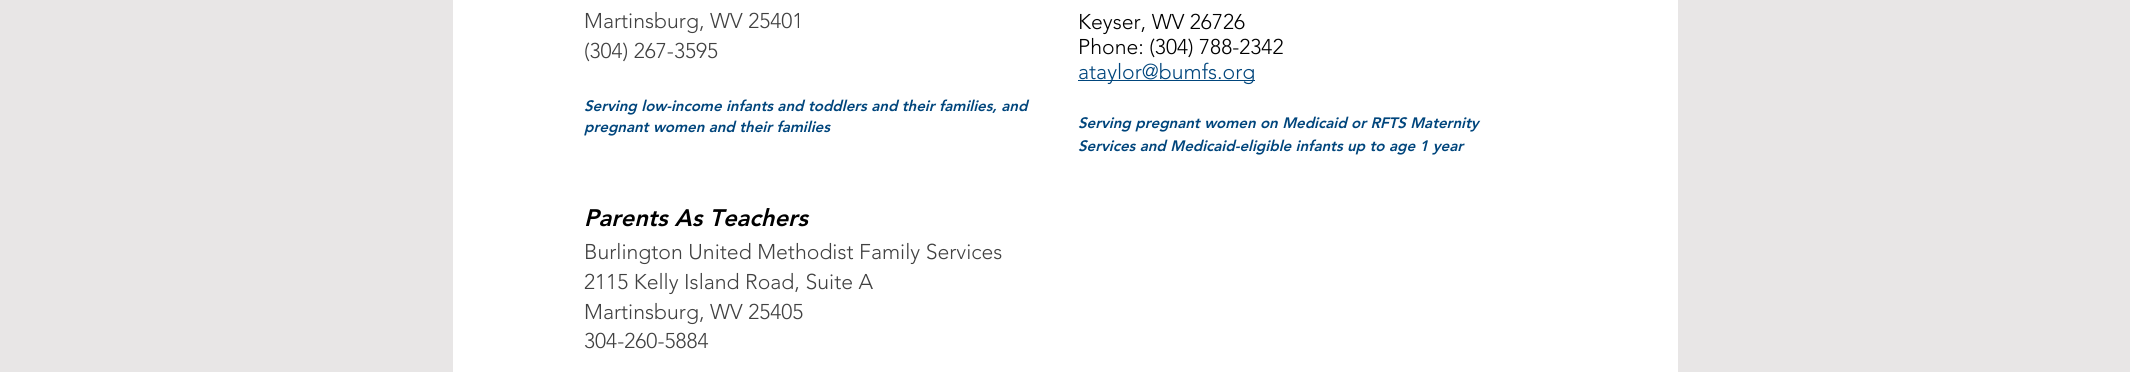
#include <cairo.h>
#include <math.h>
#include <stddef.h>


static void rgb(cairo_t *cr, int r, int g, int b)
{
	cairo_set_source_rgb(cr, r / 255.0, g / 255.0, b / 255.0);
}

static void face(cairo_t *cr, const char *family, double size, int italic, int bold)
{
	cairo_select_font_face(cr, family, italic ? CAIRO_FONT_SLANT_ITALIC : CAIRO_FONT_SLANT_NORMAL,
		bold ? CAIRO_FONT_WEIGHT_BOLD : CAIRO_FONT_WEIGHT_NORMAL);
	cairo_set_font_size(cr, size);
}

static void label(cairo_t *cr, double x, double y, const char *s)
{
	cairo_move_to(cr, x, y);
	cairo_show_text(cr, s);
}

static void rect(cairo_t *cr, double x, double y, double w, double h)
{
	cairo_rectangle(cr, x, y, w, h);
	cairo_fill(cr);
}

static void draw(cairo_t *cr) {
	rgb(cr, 232, 230, 230);
	cairo_paint(cr);
	rgb(cr, 255, 255, 255);
	rect(cr, 453, 0, 1225, 372);
	face(cr, "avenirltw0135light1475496 Light", 21.25, 0, 0);
	rgb(cr, 65, 65, 65);
	label(cr, 584, 28, "Martinsburg, WV 25401");
	label(cr, 584, 58, "(304) 267-3595");
	face(cr, "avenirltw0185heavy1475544 Black", 15, 1, 0);
	rgb(cr, 0, 69, 124);
	label(cr, 584, 111, "Serving low-income infants and toddlers and their families, and");
	label(cr, 584, 132, "pregnant women and their families");
	face(cr, "avenirltw0185heavy1475544 Black", 23.75, 1, 0);
	rgb(cr, 0, 0, 0);
	label(cr, 584, 226, "Parents As Teachers");
	face(cr, "avenirltw0135light1475496 Light", 21.25, 0, 0);
	rgb(cr, 65, 65, 65);
	label(cr, 584, 259, "Burlington United Methodist Family Services");
	label(cr, 584, 289, "2115 Kelly Island Road, Suite A");
	label(cr, 584, 319, "Martinsburg, WV 25405");
	label(cr, 584, 348, "304-260-5884");
	rgb(cr, 0, 0, 0);
	label(cr, 1078, 29, "Keyser, WV 26726");
	label(cr, 1078, 54, "Phone: (304) 788-2342");
	rgb(cr, 0, 69, 124);
	rect(cr, 1078, 80, 177, 1);
	label(cr, 1078, 79, "ataylor@bumfs.org");
	face(cr, "avenirltw0185heavy1475544 Black", 15, 1, 0);
	label(cr, 1078, 128, "Serving pregnant women on Medicaid or RFTS Maternity");
	label(cr, 1078, 151, "Services and Medicaid-eligible infants up to age 1 year");
}

int main(void) {
	cairo_surface_t *surface = cairo_image_surface_create(CAIRO_FORMAT_RGB24, 2130, 372);
	cairo_t *cr = cairo_create(surface);
	cairo_font_options_t *options = cairo_font_options_create();
	cairo_font_options_set_hint_metrics(options, CAIRO_HINT_METRICS_OFF);
	cairo_font_options_set_hint_style(options, CAIRO_HINT_STYLE_NONE);
	cairo_set_font_options(cr, options);
	cairo_set_miter_limit(cr, 4);
	draw(cr);
	cairo_surface_write_to_png(surface, "render.png");
	cairo_font_options_destroy(options);
	cairo_destroy(cr);
	cairo_surface_destroy(surface);
	return 0;
}
